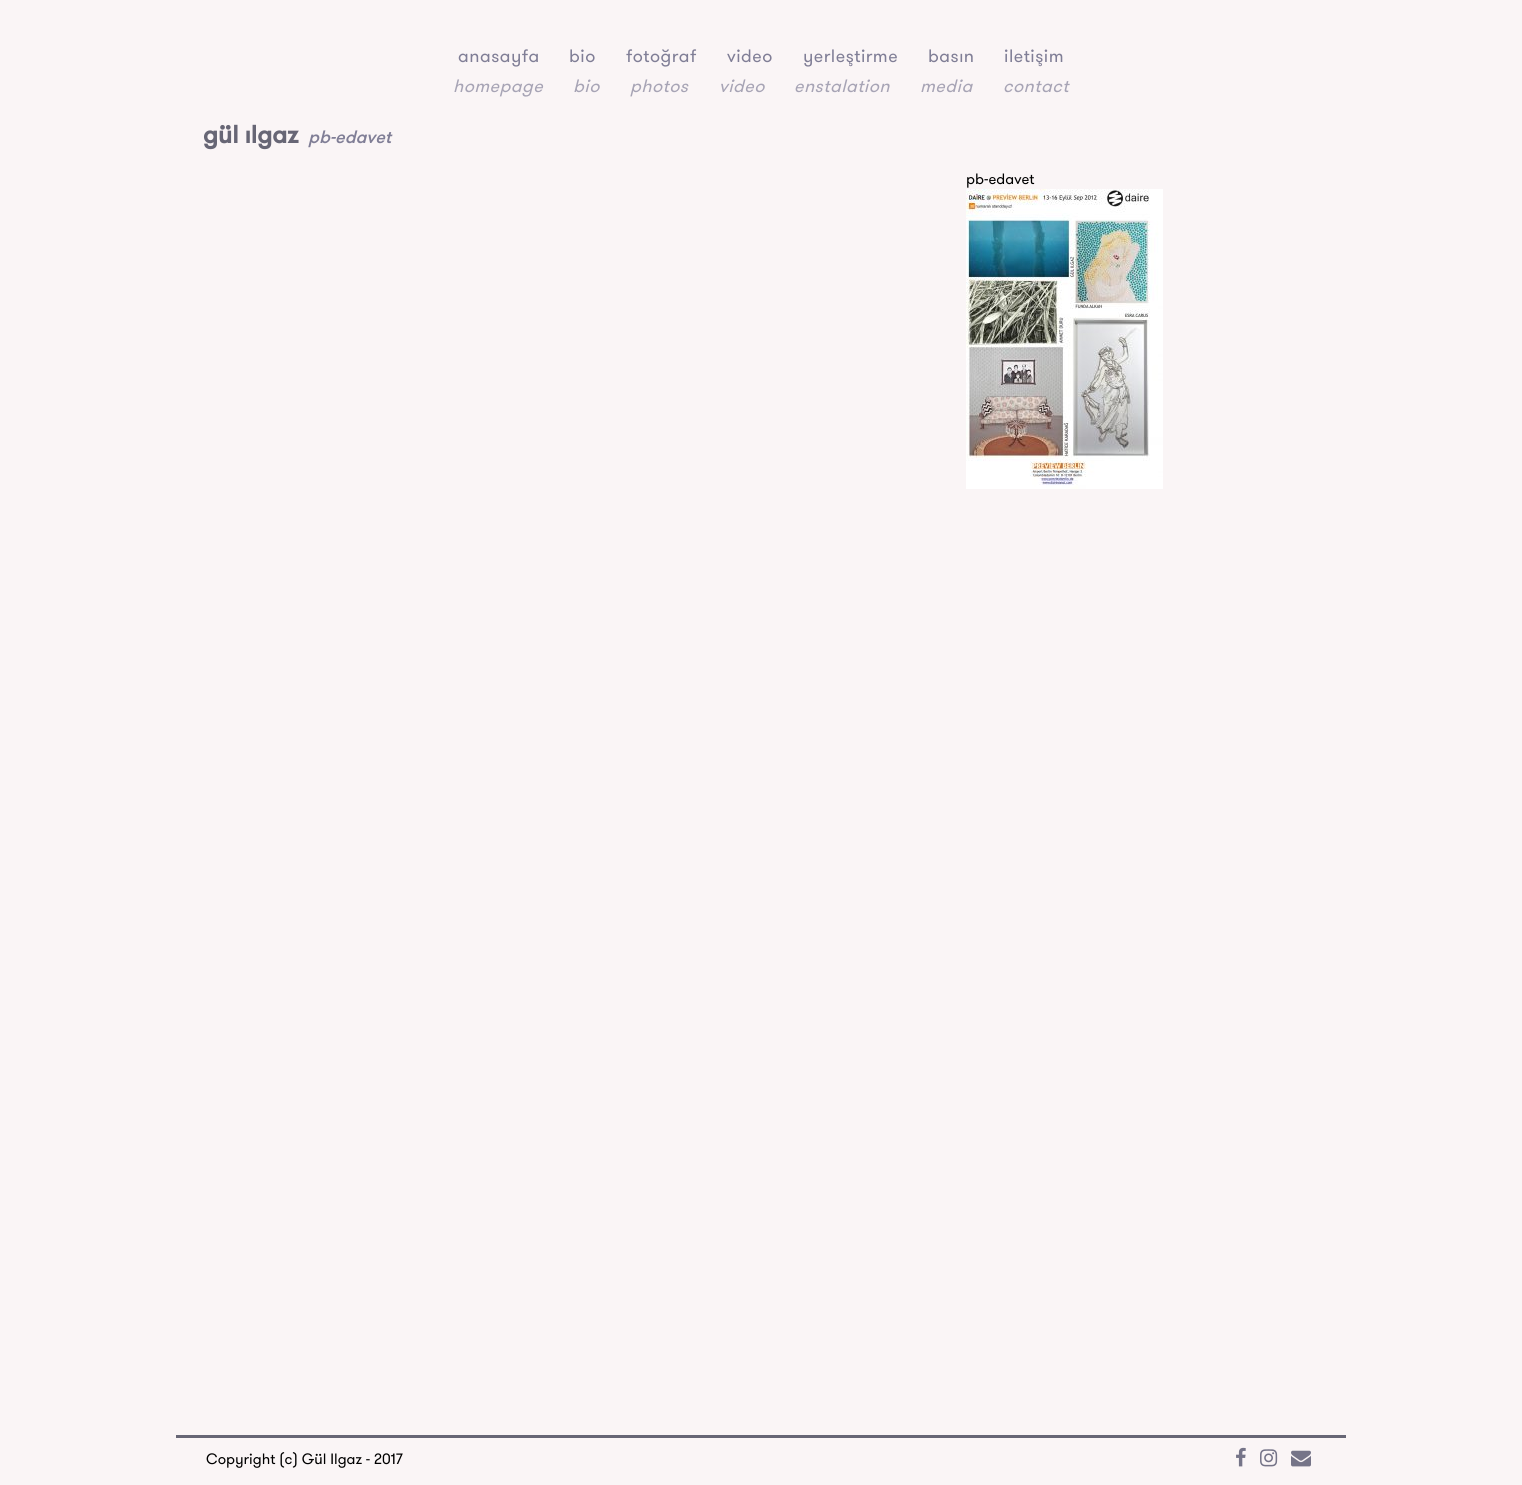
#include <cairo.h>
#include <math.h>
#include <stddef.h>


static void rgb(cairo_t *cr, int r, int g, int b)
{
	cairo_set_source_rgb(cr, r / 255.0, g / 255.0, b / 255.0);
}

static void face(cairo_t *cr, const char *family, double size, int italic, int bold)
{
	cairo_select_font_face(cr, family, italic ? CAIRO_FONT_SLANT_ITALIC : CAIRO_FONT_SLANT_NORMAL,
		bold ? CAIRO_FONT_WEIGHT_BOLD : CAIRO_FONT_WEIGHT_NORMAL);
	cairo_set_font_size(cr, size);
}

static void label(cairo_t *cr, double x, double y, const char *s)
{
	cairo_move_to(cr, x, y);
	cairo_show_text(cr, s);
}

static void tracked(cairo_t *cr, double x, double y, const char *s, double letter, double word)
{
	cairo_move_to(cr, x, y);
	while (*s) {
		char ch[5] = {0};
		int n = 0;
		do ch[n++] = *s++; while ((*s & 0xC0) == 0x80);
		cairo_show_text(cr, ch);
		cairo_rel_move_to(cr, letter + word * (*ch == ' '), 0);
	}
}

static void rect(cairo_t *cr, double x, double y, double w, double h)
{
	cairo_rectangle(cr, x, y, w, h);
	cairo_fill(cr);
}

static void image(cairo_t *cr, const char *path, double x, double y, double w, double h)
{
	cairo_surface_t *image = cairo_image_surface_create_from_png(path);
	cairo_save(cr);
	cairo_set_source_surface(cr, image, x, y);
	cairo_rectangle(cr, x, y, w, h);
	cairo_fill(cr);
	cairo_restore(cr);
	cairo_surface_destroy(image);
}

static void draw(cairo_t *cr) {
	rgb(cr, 250, 245, 246);
	cairo_paint(cr);
	face(cr, "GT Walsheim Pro", 18, 0, 0);
	rgb(cr, 128, 126, 150);
	tracked(cr, 458, 62, "anasayfa", 0.5, 0);
	tracked(cr, 569, 62, "bio", 0.5, 0);
	tracked(cr, 626, 62, "fotoğraf", 0.5, 0);
	tracked(cr, 727, 62, "video", 0.5, 0);
	tracked(cr, 803, 62, "yerleştirme", 0.5, 0);
	tracked(cr, 928, 62, "basın", 0.5, 0);
	tracked(cr, 1004, 62, "iletişim", 0.5, 0);
	face(cr, "GT Walsheim Pro", 18, 1, 0);
	rgb(cr, 167, 164, 181);
	tracked(cr, 453, 92, "homepage", 0.5, 0);
	tracked(cr, 573, 92, "bio", 0.5, 0);
	tracked(cr, 630, 92, "photos", 0.5, 0);
	tracked(cr, 719, 92, "video", 0.5, 0);
	tracked(cr, 794, 92, "enstalation", 0.5, 0);
	tracked(cr, 920, 92, "media", 0.5, 0);
	tracked(cr, 1003, 92, "contact", 0.5, 0);
	face(cr, "GT Walsheim Pro", 25, 0, 1);
	rgb(cr, 103, 102, 117);
	label(cr, 203, 143, "gül ılgaz");
	face(cr, "GT Walsheim Pro Medium", 18, 1, 0);
	rgb(cr, 128, 126, 150);
	label(cr, 308, 143, "pb-edavet");
	face(cr, "GT Walsheim Pro", 15, 0, 0);
	rgb(cr, 0, 0, 0);
	label(cr, 966, 184, "pb-edavet");
	image(cr, "image0.png", 966, 189, 197, 300);
	rgb(cr, 103, 102, 117);
	rect(cr, 176, 1435, 1170, 3);
	rgb(cr, 0, 0, 0);
	label(cr, 206, 1464, "Copyright (c) Gül Ilgaz - 2017");
	image(cr, "image1.png", 1236, 1447, 10, 20);
	image(cr, "image2.png", 1260, 1449, 18, 18);
	image(cr, "image3.png", 1291, 1450, 20, 17);
}

int main(void) {
	cairo_surface_t *surface = cairo_image_surface_create(CAIRO_FORMAT_RGB24, 1522, 1485);
	cairo_t *cr = cairo_create(surface);
	cairo_font_options_t *options = cairo_font_options_create();
	cairo_font_options_set_hint_metrics(options, CAIRO_HINT_METRICS_OFF);
	cairo_font_options_set_hint_style(options, CAIRO_HINT_STYLE_NONE);
	cairo_set_font_options(cr, options);
	cairo_set_miter_limit(cr, 4);
	draw(cr);
	cairo_surface_write_to_png(surface, "render.png");
	cairo_font_options_destroy(options);
	cairo_destroy(cr);
	cairo_surface_destroy(surface);
	return 0;
}
